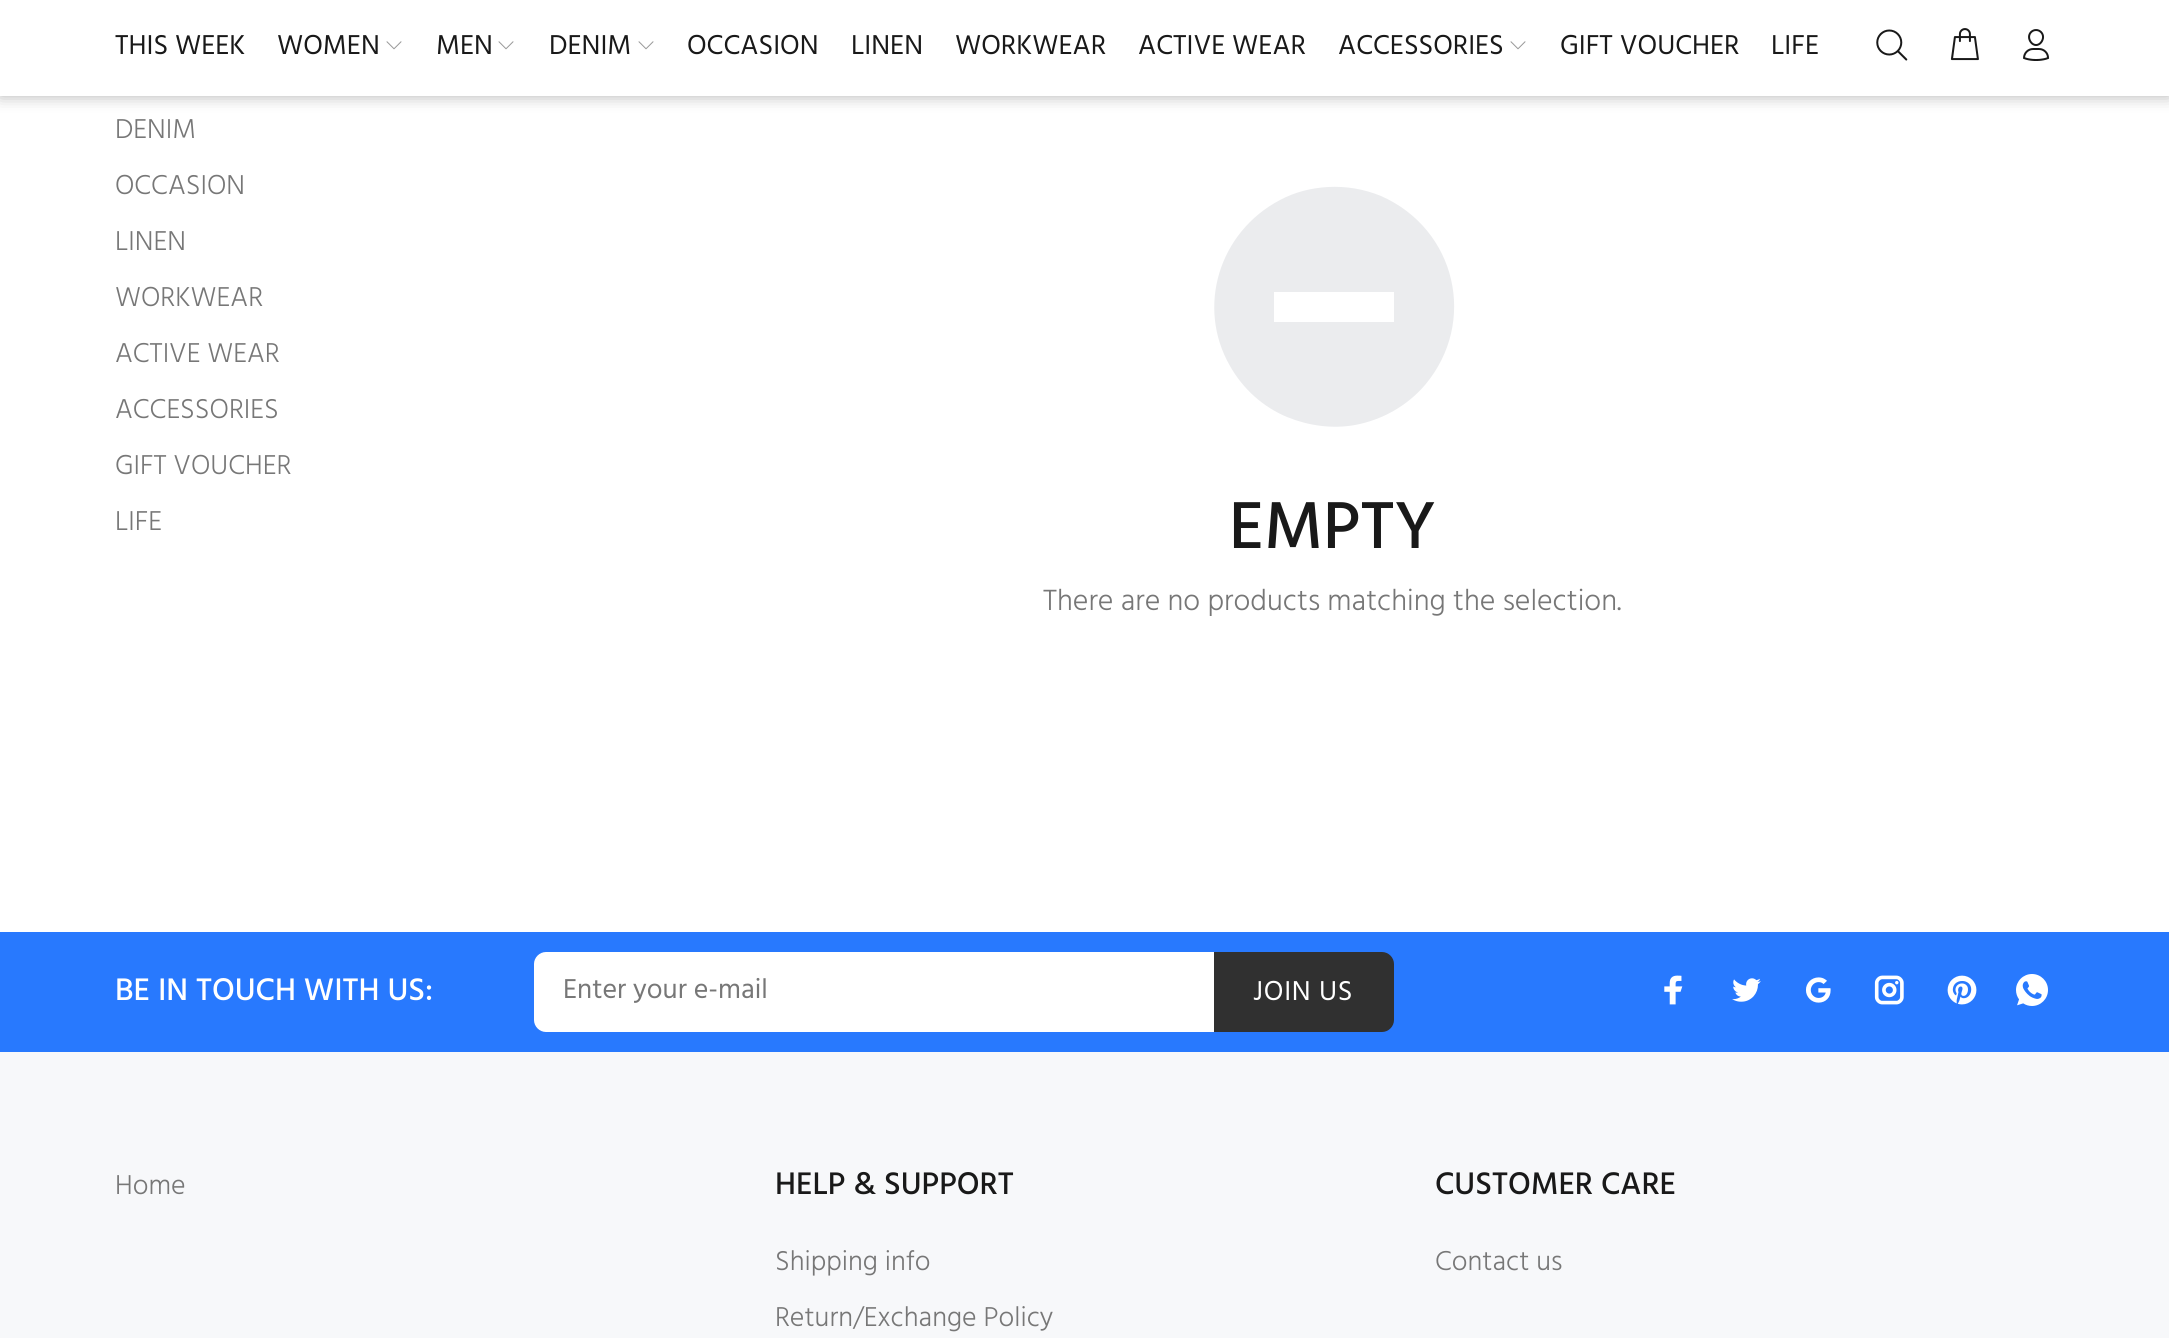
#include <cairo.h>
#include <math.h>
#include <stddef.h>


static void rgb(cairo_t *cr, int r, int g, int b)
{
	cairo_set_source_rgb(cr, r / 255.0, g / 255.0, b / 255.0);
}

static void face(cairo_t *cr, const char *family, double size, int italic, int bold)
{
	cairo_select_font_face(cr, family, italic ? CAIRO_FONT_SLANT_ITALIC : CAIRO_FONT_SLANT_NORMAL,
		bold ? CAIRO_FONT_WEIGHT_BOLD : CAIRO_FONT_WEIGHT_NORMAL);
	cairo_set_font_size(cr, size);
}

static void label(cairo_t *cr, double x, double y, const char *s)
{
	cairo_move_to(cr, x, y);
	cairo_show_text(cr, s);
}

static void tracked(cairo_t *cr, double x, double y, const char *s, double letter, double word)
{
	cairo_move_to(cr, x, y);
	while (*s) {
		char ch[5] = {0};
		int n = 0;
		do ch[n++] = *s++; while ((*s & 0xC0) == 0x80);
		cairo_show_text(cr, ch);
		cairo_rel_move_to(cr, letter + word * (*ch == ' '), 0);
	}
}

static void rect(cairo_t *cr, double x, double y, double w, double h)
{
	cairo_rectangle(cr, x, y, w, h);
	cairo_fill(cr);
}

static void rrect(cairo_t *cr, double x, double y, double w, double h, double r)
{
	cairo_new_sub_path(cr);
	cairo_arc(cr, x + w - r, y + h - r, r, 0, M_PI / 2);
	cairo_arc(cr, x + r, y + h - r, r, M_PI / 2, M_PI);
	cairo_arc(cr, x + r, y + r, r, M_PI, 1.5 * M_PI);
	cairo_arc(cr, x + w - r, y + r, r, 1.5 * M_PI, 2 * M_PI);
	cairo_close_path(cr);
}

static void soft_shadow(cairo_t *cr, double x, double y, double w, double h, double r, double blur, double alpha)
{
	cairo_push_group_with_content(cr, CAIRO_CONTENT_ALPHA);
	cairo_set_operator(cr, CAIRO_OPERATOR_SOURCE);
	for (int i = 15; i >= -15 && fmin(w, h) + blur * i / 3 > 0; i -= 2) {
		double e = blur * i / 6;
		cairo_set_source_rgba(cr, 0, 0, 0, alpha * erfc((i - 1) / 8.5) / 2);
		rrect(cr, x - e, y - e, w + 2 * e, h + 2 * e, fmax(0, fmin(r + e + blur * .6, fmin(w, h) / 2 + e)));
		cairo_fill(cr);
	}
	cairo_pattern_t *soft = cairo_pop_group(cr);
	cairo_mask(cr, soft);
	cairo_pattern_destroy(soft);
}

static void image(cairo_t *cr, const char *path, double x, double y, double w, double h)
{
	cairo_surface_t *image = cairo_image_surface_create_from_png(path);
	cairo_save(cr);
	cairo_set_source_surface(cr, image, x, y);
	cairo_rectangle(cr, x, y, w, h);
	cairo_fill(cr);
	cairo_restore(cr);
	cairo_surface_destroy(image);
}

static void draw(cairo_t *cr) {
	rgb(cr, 255, 255, 255);
	cairo_paint(cr);
	rgb(cr, 0, 0, 0);
	soft_shadow(cr, 0, 0, 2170, 96, 0, 8, 0.3);
	rgb(cr, 255, 255, 255);
	rect(cr, 0, 0, 2169, 96);
	face(cr, "Hind", 28, 0, 0);
	rgb(cr, 25, 25, 25);
	label(cr, 115, 54, "THIS WEEK");
	label(cr, 277, 54, "WOMEN");
	image(cr, "image0.png", 386, 41, 16, 9);
	label(cr, 436, 54, "MEN");
	image(cr, "image0.png", 498, 41, 16, 9);
	label(cr, 549, 54, "DENIM");
	image(cr, "image0.png", 638, 41, 16, 9);
	label(cr, 687, 54, "OCCASION");
	label(cr, 851, 54, "LINEN");
	label(cr, 955, 54, "WORKWEAR");
	label(cr, 1138, 54, "ACTIVE WEAR");
	label(cr, 1338, 54, "ACCESSORIES");
	image(cr, "image0.png", 1510, 41, 16, 9);
	label(cr, 1560, 54, "GIFT VOUCHER");
	label(cr, 1771, 54, "LIFE");
	image(cr, "image1.png", 1876, 29, 32, 32);
	image(cr, "image2.png", 1950, 28, 29, 33);
	image(cr, "image3.png", 2023, 29, 27, 32);
	face(cr, "Hind Light", 28, 0, 0);
	rgb(cr, 119, 119, 119);
	label(cr, 115, 138, "DENIM");
	label(cr, 115, 194, "OCCASION");
	label(cr, 115, 250, "LINEN");
	label(cr, 115, 306, "WORKWEAR");
	label(cr, 115, 362, "ACTIVE WEAR");
	label(cr, 115, 418, "ACCESSORIES");
	label(cr, 115, 474, "GIFT VOUCHER");
	label(cr, 115, 530, "LIFE");
	rgb(cr, 235, 236, 238);
	cairo_new_path(cr);
	cairo_move_to(cr, 1381, 196);
	cairo_curve_to(cr, 1456, 229, 1478, 322, 1425, 385);
	cairo_curve_to(cr, 1407, 406, 1382, 420, 1355, 425);
	cairo_curve_to(cr, 1333, 429, 1309, 426, 1287, 417);
	cairo_curve_to(cr, 1263, 407, 1243, 389, 1230, 366);
	cairo_curve_to(cr, 1196, 307, 1219, 232, 1280, 200);
	cairo_curve_to(cr, 1295, 192, 1311, 188, 1328, 187);
	cairo_curve_to(cr, 1346, 186, 1364, 189, 1381, 196);
	cairo_close_path(cr);
	cairo_move_to(cr, 1394, 292);
	cairo_line_to(cr, 1274, 292);
	cairo_line_to(cr, 1274, 322);
	cairo_line_to(cr, 1394, 322);
	cairo_close_path(cr);
	cairo_fill(cr);
	face(cr, "Hind Medium", 68, 0, 0);
	rgb(cr, 25, 25, 25);
	label(cr, 1229, 548, "EMPTY");
	face(cr, "Hind Light", 30, 0, 0);
	rgb(cr, 119, 119, 119);
	label(cr, 1043, 610, "There are no products matching the selection.");
	rgb(cr, 247, 248, 250);
	rect(cr, 0, 1052, 2169, 286);
	rgb(cr, 40, 121, 254);
	rect(cr, 0, 932, 2169, 120);
	face(cr, "Hind Medium", 32, 0, 0);
	rgb(cr, 255, 255, 255);
	label(cr, 115, 1000, "BE IN TOUCH WITH US:");
	cairo_new_path(cr);
	cairo_move_to(cr, 546, 952);
	cairo_line_to(cr, 1214, 952);
	cairo_line_to(cr, 1214, 1032);
	cairo_line_to(cr, 546, 1032);
	cairo_curve_to(cr, 539.5, 1032, 534, 1026.5, 534, 1020);
	cairo_line_to(cr, 534, 964);
	cairo_curve_to(cr, 534, 957.5, 539.5, 952, 546, 952);
	cairo_close_path(cr);
	cairo_fill(cr);
	face(cr, "Hind", 28, 0, 0);
	rgb(cr, 119, 119, 119);
	label(cr, 563, 998, "Enter your e-mail");
	rgb(cr, 48, 48, 48);
	cairo_new_path(cr);
	cairo_move_to(cr, 1214, 952);
	cairo_line_to(cr, 1382, 952);
	cairo_curve_to(cr, 1388.5, 952, 1394, 957.5, 1394, 964);
	cairo_line_to(cr, 1394, 1020);
	cairo_curve_to(cr, 1394, 1026.5, 1388.5, 1032, 1382, 1032);
	cairo_line_to(cr, 1214, 1032);
	cairo_close_path(cr);
	cairo_fill(cr);
	rgb(cr, 255, 255, 255);
	tracked(cr, 1253, 1000, "JOIN US", 0.75, 0);
	image(cr, "image4.png", 1664, 975, 19, 30);
	image(cr, "image5.png", 1732, 978, 29, 24);
	image(cr, "image6.png", 1806, 977, 25, 26);
	image(cr, "image7.png", 1874, 975, 30, 30);
	image(cr, "image8.png", 1947, 975, 30, 30);
	image(cr, "image9.png", 2016, 974, 32, 32);
	face(cr, "Hind Light", 28, 0, 0);
	rgb(cr, 119, 119, 119);
	label(cr, 115, 1194, "Home");
	face(cr, "Hind Medium", 32, 0, 0);
	rgb(cr, 25, 25, 25);
	label(cr, 775, 1194, "HELP & SUPPORT");
	face(cr, "Hind Light", 28, 0, 0);
	rgb(cr, 119, 119, 119);
	label(cr, 775, 1270, "Shipping info");
	label(cr, 775, 1326, "Return/Exchange Policy");
	face(cr, "Hind Medium", 32, 0, 0);
	rgb(cr, 25, 25, 25);
	label(cr, 1435, 1194, "CUSTOMER CARE");
	face(cr, "Hind Light", 28, 0, 0);
	rgb(cr, 119, 119, 119);
	label(cr, 1435, 1270, "Contact us");
}

int main(void) {
	cairo_surface_t *surface = cairo_image_surface_create(CAIRO_FORMAT_RGB24, 2169, 1338);
	cairo_t *cr = cairo_create(surface);
	cairo_font_options_t *options = cairo_font_options_create();
	cairo_font_options_set_hint_metrics(options, CAIRO_HINT_METRICS_OFF);
	cairo_font_options_set_hint_style(options, CAIRO_HINT_STYLE_NONE);
	cairo_set_font_options(cr, options);
	cairo_set_miter_limit(cr, 4);
	draw(cr);
	cairo_surface_write_to_png(surface, "render.png");
	cairo_font_options_destroy(options);
	cairo_destroy(cr);
	cairo_surface_destroy(surface);
	return 0;
}
